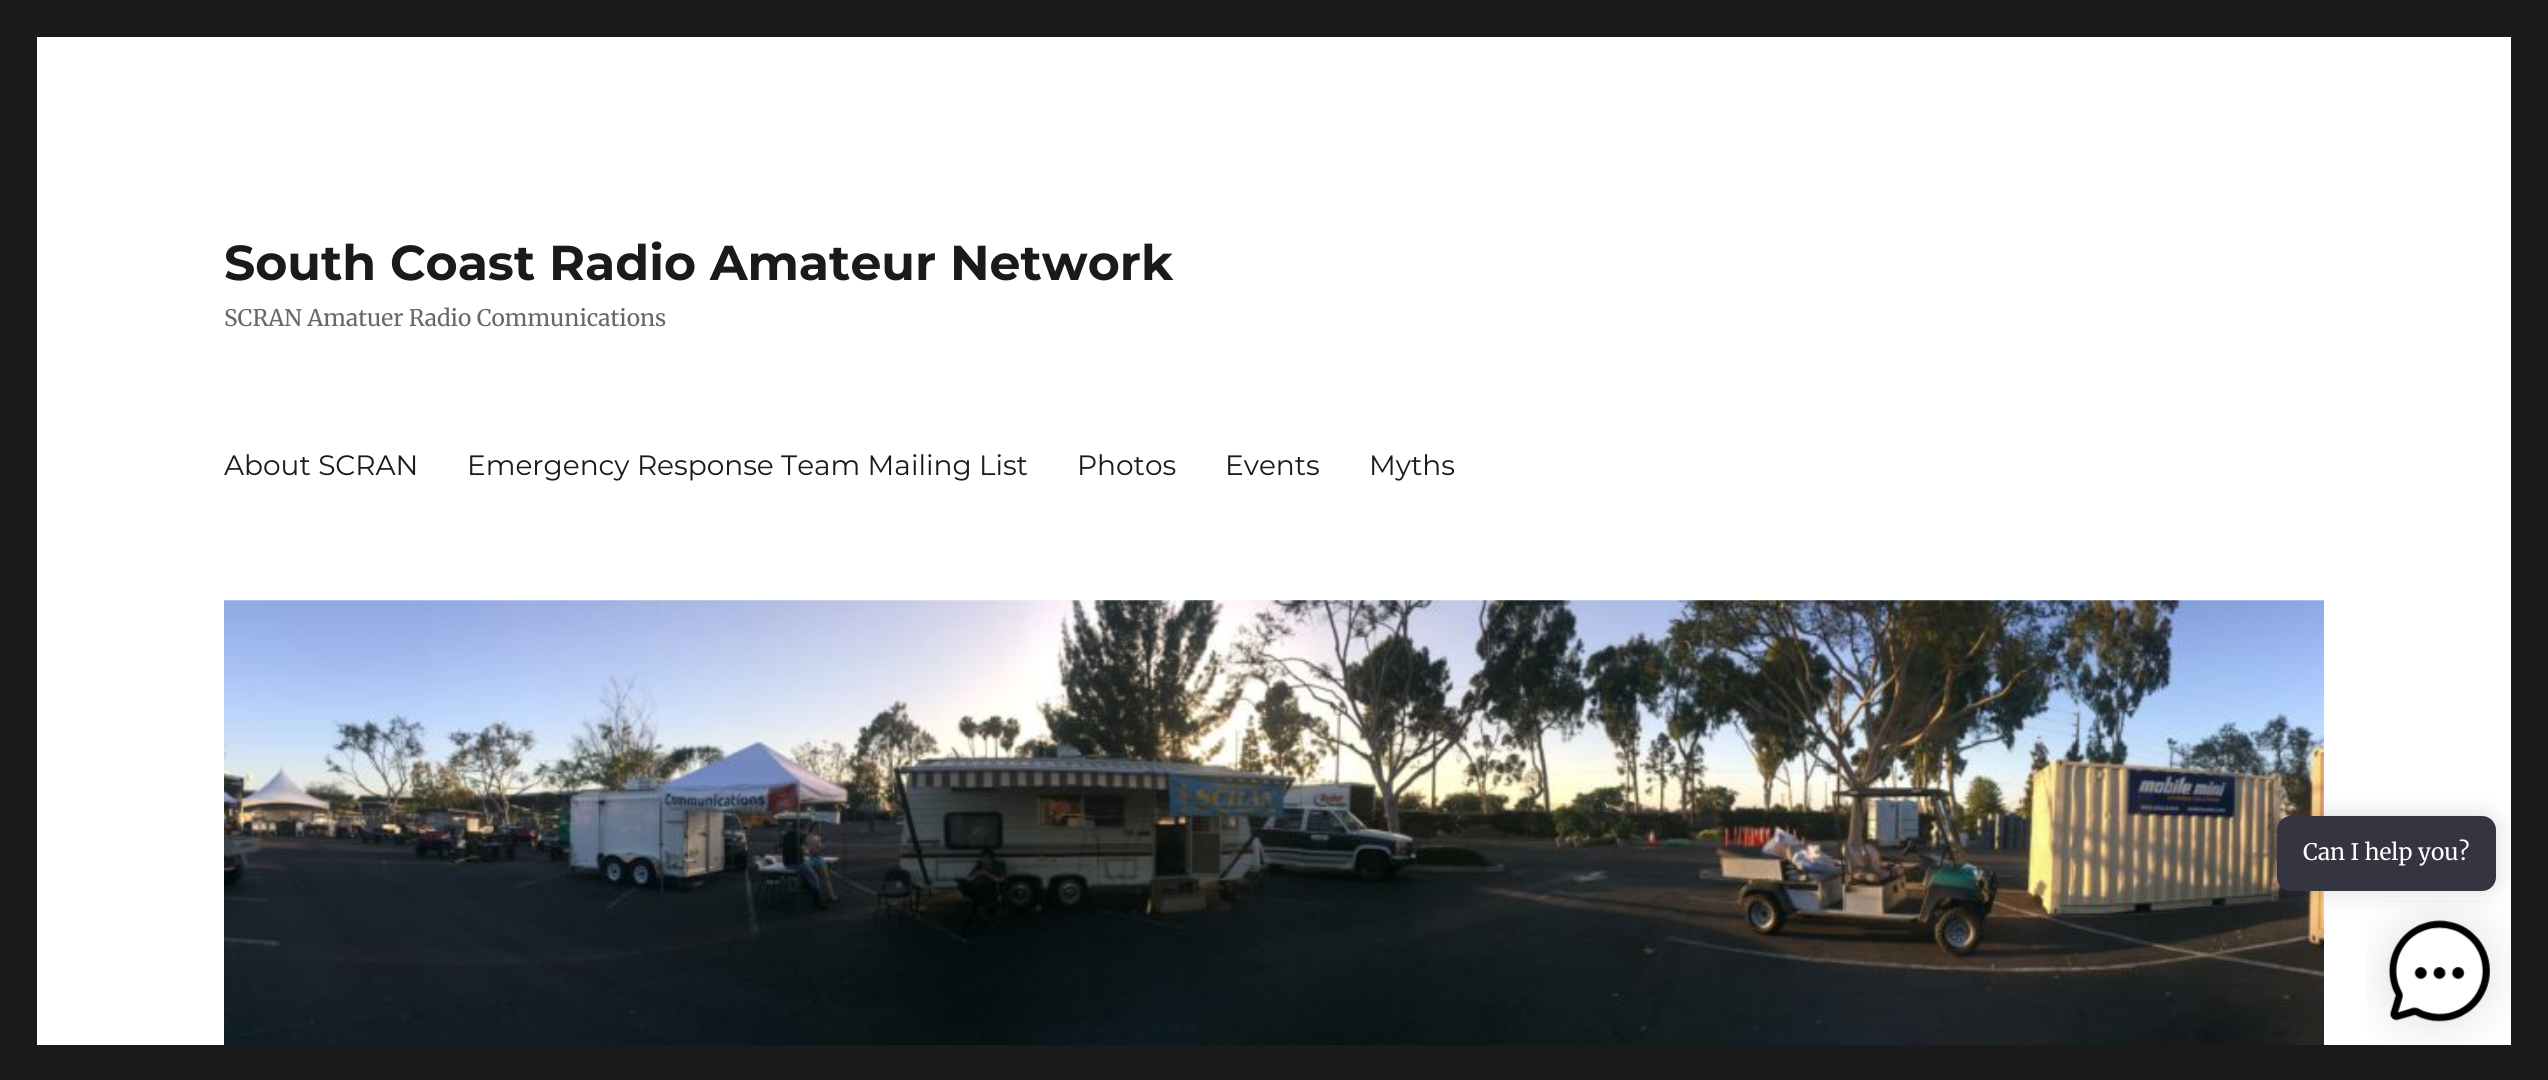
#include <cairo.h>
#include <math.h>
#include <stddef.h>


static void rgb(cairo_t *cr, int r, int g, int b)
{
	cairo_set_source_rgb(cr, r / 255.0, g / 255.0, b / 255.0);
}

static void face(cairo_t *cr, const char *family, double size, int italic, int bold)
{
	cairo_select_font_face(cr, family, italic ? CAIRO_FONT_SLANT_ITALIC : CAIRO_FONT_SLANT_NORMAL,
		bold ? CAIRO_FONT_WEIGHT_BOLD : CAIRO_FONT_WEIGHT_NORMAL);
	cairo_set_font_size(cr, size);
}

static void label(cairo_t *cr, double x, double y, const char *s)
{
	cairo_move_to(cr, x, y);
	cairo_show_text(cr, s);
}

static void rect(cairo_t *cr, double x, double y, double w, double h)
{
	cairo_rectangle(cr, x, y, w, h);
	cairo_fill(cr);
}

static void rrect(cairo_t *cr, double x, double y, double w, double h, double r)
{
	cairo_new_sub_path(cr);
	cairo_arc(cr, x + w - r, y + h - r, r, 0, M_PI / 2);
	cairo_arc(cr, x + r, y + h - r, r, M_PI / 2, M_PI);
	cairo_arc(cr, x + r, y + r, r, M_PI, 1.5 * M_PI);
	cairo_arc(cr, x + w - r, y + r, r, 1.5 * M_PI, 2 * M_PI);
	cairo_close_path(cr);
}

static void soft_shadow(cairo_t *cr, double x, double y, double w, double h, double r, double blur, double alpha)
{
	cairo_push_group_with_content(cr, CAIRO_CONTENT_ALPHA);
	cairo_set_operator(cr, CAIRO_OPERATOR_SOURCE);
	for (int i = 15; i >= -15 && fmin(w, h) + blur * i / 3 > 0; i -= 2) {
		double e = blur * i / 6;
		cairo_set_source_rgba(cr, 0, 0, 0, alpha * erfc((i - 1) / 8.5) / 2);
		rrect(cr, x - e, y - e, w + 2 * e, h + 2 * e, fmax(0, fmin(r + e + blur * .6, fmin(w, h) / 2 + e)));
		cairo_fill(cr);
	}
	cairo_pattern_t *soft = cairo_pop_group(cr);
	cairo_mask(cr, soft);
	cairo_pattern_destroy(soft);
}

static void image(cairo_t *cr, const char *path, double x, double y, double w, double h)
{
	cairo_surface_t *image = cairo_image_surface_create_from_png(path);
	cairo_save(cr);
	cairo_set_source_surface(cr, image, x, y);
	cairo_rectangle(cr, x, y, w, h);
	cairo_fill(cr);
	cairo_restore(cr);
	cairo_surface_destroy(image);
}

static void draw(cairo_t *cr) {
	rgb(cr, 26, 26, 26);
	cairo_paint(cr);
	rgb(cr, 255, 255, 255);
	rect(cr, 37, 37, 2474, 1008);
	face(cr, "Montserrat", 49, 0, 1);
	rgb(cr, 26, 26, 26);
	label(cr, 224, 280, "South Coast Radio Amateur Network");
	face(cr, "Merriweather", 22.75, 0, 0);
	rgb(cr, 104, 104, 104);
	label(cr, 224, 326, "SCRAN Amatuer Radio Communications");
	face(cr, "Montserrat", 28, 0, 0);
	rgb(cr, 26, 26, 26);
	label(cr, 224, 475, "About SCRAN");
	label(cr, 467, 475, "Emergency Response Team Mailing List");
	label(cr, 1077, 475, "Photos");
	label(cr, 1225, 475, "Events");
	label(cr, 1369, 475, "Myths");
	image(cr, "image0.png", 224, 600, 2100, 445);
	image(cr, "image1.png", 2367, 900, 144, 144);
	rgb(cr, 0, 0, 0);
	soft_shadow(cr, 2277, 816, 219, 75, 14, 13, 0.15);
	rgb(cr, 52, 53, 65);
	rrect(cr, 2277, 816, 219, 75, 14);
	cairo_fill(cr);
	face(cr, "Merriweather", 22.75, 0, 0);
	rgb(cr, 255, 255, 255);
	label(cr, 2303, 860, "Can I help you?");
}

int main(void) {
	cairo_surface_t *surface = cairo_image_surface_create(CAIRO_FORMAT_RGB24, 2548, 1080);
	cairo_t *cr = cairo_create(surface);
	cairo_font_options_t *options = cairo_font_options_create();
	cairo_font_options_set_hint_metrics(options, CAIRO_HINT_METRICS_OFF);
	cairo_font_options_set_hint_style(options, CAIRO_HINT_STYLE_NONE);
	cairo_set_font_options(cr, options);
	cairo_set_miter_limit(cr, 4);
	draw(cr);
	cairo_surface_write_to_png(surface, "render.png");
	cairo_font_options_destroy(options);
	cairo_destroy(cr);
	cairo_surface_destroy(surface);
	return 0;
}
